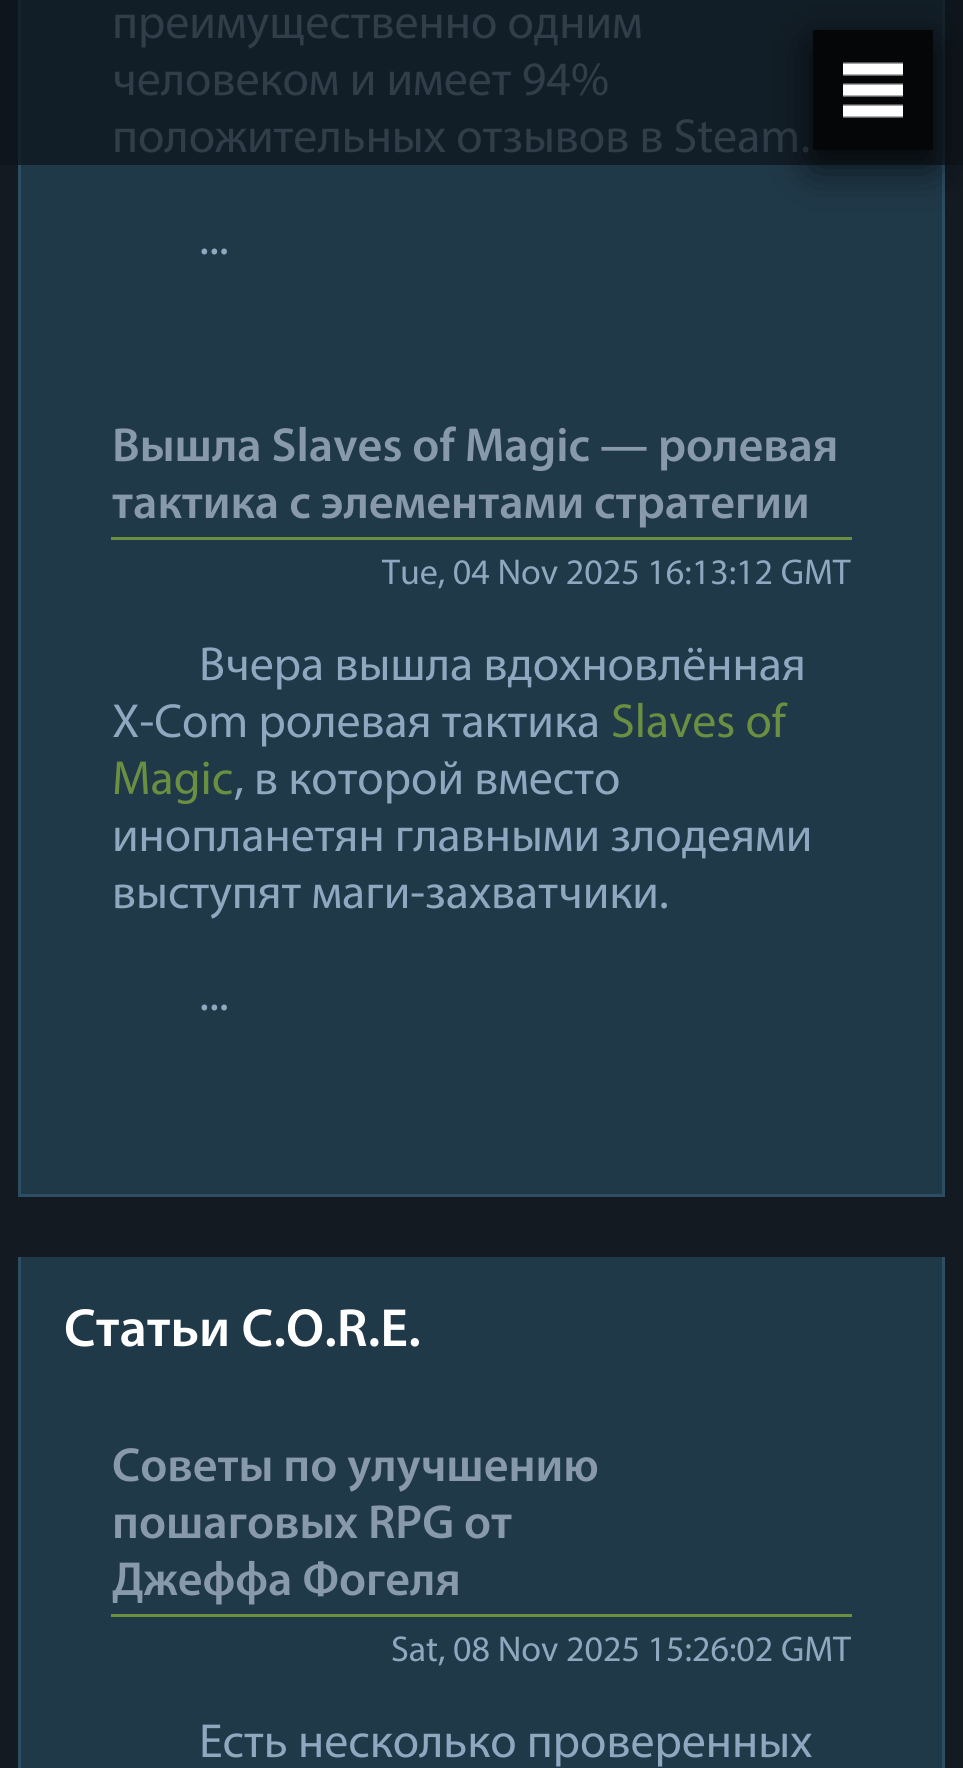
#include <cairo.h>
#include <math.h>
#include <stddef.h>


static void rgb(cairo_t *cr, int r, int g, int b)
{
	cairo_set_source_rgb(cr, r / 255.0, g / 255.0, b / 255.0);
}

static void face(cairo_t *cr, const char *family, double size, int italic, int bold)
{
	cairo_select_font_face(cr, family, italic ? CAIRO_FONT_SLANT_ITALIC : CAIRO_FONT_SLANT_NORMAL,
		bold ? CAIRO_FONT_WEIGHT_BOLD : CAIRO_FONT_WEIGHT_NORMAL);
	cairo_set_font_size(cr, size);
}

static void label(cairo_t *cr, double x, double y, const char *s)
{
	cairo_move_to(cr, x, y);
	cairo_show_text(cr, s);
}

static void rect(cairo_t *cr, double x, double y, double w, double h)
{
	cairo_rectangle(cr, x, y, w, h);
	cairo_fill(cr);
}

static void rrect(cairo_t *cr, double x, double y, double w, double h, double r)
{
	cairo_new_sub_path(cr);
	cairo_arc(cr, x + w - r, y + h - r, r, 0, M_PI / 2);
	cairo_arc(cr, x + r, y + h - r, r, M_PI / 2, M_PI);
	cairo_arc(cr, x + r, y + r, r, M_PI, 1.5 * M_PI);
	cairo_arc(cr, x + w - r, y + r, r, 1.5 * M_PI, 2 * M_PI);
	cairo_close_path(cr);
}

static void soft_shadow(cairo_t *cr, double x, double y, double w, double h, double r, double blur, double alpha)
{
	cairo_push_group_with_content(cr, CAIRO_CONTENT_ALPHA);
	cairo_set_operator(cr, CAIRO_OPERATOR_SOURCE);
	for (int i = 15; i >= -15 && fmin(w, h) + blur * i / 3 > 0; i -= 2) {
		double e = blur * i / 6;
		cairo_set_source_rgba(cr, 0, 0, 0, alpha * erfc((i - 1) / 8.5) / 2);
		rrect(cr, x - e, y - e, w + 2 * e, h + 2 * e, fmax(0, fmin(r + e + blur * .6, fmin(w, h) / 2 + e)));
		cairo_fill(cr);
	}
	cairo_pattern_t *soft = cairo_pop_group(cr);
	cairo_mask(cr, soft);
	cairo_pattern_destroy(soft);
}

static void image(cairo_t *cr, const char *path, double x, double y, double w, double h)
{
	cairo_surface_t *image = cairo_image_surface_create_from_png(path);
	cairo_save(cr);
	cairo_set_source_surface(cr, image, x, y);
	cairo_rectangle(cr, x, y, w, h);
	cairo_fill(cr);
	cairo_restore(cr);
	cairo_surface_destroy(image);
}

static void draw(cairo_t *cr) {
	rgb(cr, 19, 26, 34);
	cairo_paint(cr);
	rgb(cr, 14, 21, 28);
	rect(cr, 0, 0, 963, 165);
	rgb(cr, 32, 57, 73);
	rect(cr, 21, 165, 921, 1029);
	rgb(cr, 18, 30, 39);
	rect(cr, 21, 0, 921, 165);
	rgb(cr, 45, 77, 98);
	rect(cr, 942, 165, 3, 1032);
	rgb(cr, 21, 35, 46);
	rect(cr, 942, 0, 3, 165);
	rgb(cr, 45, 77, 98);
	rect(cr, 18, 1194, 927, 3);
	rect(cr, 18, 165, 3, 1032);
	rgb(cr, 21, 35, 46);
	rect(cr, 18, 0, 3, 165);
	face(cr, "Myriad", 48, 0, 0);
	rgb(cr, 49, 61, 72);
	label(cr, 112, 38, "преимущественно одним");
	label(cr, 112, 95, "человеком и имеет 94%");
	label(cr, 112, 152, "положительных отзывов в Steam.");
	rgb(cr, 144, 168, 191);
	label(cr, 199, 254, "...");
	rgb(cr, 106, 143, 65);
	rect(cr, 111, 537, 741, 3);
	face(cr, "Myriad SemiBold", 48, 0, 0);
	rgb(cr, 135, 153, 170);
	label(cr, 112, 461, "Вышла Slaves of Magic — ролевая");
	label(cr, 112, 518, "тактика с элементами стратегии");
	face(cr, "Myriad", 36, 0, 0);
	rgb(cr, 144, 168, 191);
	label(cr, 382, 584, "Tue, 04 Nov 2025 16:13:12 GMT");
	face(cr, "Myriad", 48, 0, 0);
	label(cr, 199, 680, "Вчера вышла вдохновлённая");
	label(cr, 112, 737, "X-Com ролевая тактика");
	rgb(cr, 106, 143, 65);
	label(cr, 611, 737, "Slaves of");
	label(cr, 112, 794, "Magic");
	rgb(cr, 144, 168, 191);
	label(cr, 234, 794, ", в которой вместо");
	label(cr, 112, 851, "инопланетян главными злодеями");
	label(cr, 112, 908, "выступят маги-захватчики.");
	label(cr, 199, 1010, "...");
	rgb(cr, 32, 57, 73);
	rect(cr, 21, 1257, 921, 511);
	rgb(cr, 45, 77, 98);
	rect(cr, 942, 1257, 3, 511);
	rect(cr, 18, 1257, 3, 511);
	face(cr, "Myriad SemiBold", 54, 0, 0);
	rgb(cr, 255, 255, 255);
	label(cr, 64, 1346, "Статьи C.O.R.E.");
	rgb(cr, 106, 143, 65);
	rect(cr, 111, 1614, 741, 3);
	face(cr, "Myriad SemiBold", 48, 0, 0);
	rgb(cr, 135, 153, 170);
	label(cr, 112, 1481, "Советы по улучшению");
	label(cr, 112, 1538, "пошаговых RPG от");
	label(cr, 112, 1595, "Джеффа Фогеля");
	face(cr, "Myriad", 36, 0, 0);
	rgb(cr, 144, 168, 191);
	label(cr, 391, 1661, "Sat, 08 Nov 2025 15:26:02 GMT");
	face(cr, "Myriad", 48, 0, 0);
	label(cr, 199, 1757, "Есть несколько проверенных");
	rgb(cr, 0, 0, 0);
	soft_shadow(cr, 813, 45, 120, 120, 0, 22.5, 0.75);
	rgb(cr, 4, 6, 8);
	rect(cr, 813, 30, 120, 120);
	image(cr, "image0.png", 843, 62, 60, 56);
}

int main(void) {
	cairo_surface_t *surface = cairo_image_surface_create(CAIRO_FORMAT_RGB24, 963, 1768);
	cairo_t *cr = cairo_create(surface);
	cairo_font_options_t *options = cairo_font_options_create();
	cairo_font_options_set_hint_metrics(options, CAIRO_HINT_METRICS_OFF);
	cairo_font_options_set_hint_style(options, CAIRO_HINT_STYLE_NONE);
	cairo_set_font_options(cr, options);
	cairo_set_miter_limit(cr, 4);
	draw(cr);
	cairo_surface_write_to_png(surface, "render.png");
	cairo_font_options_destroy(options);
	cairo_destroy(cr);
	cairo_surface_destroy(surface);
	return 0;
}
